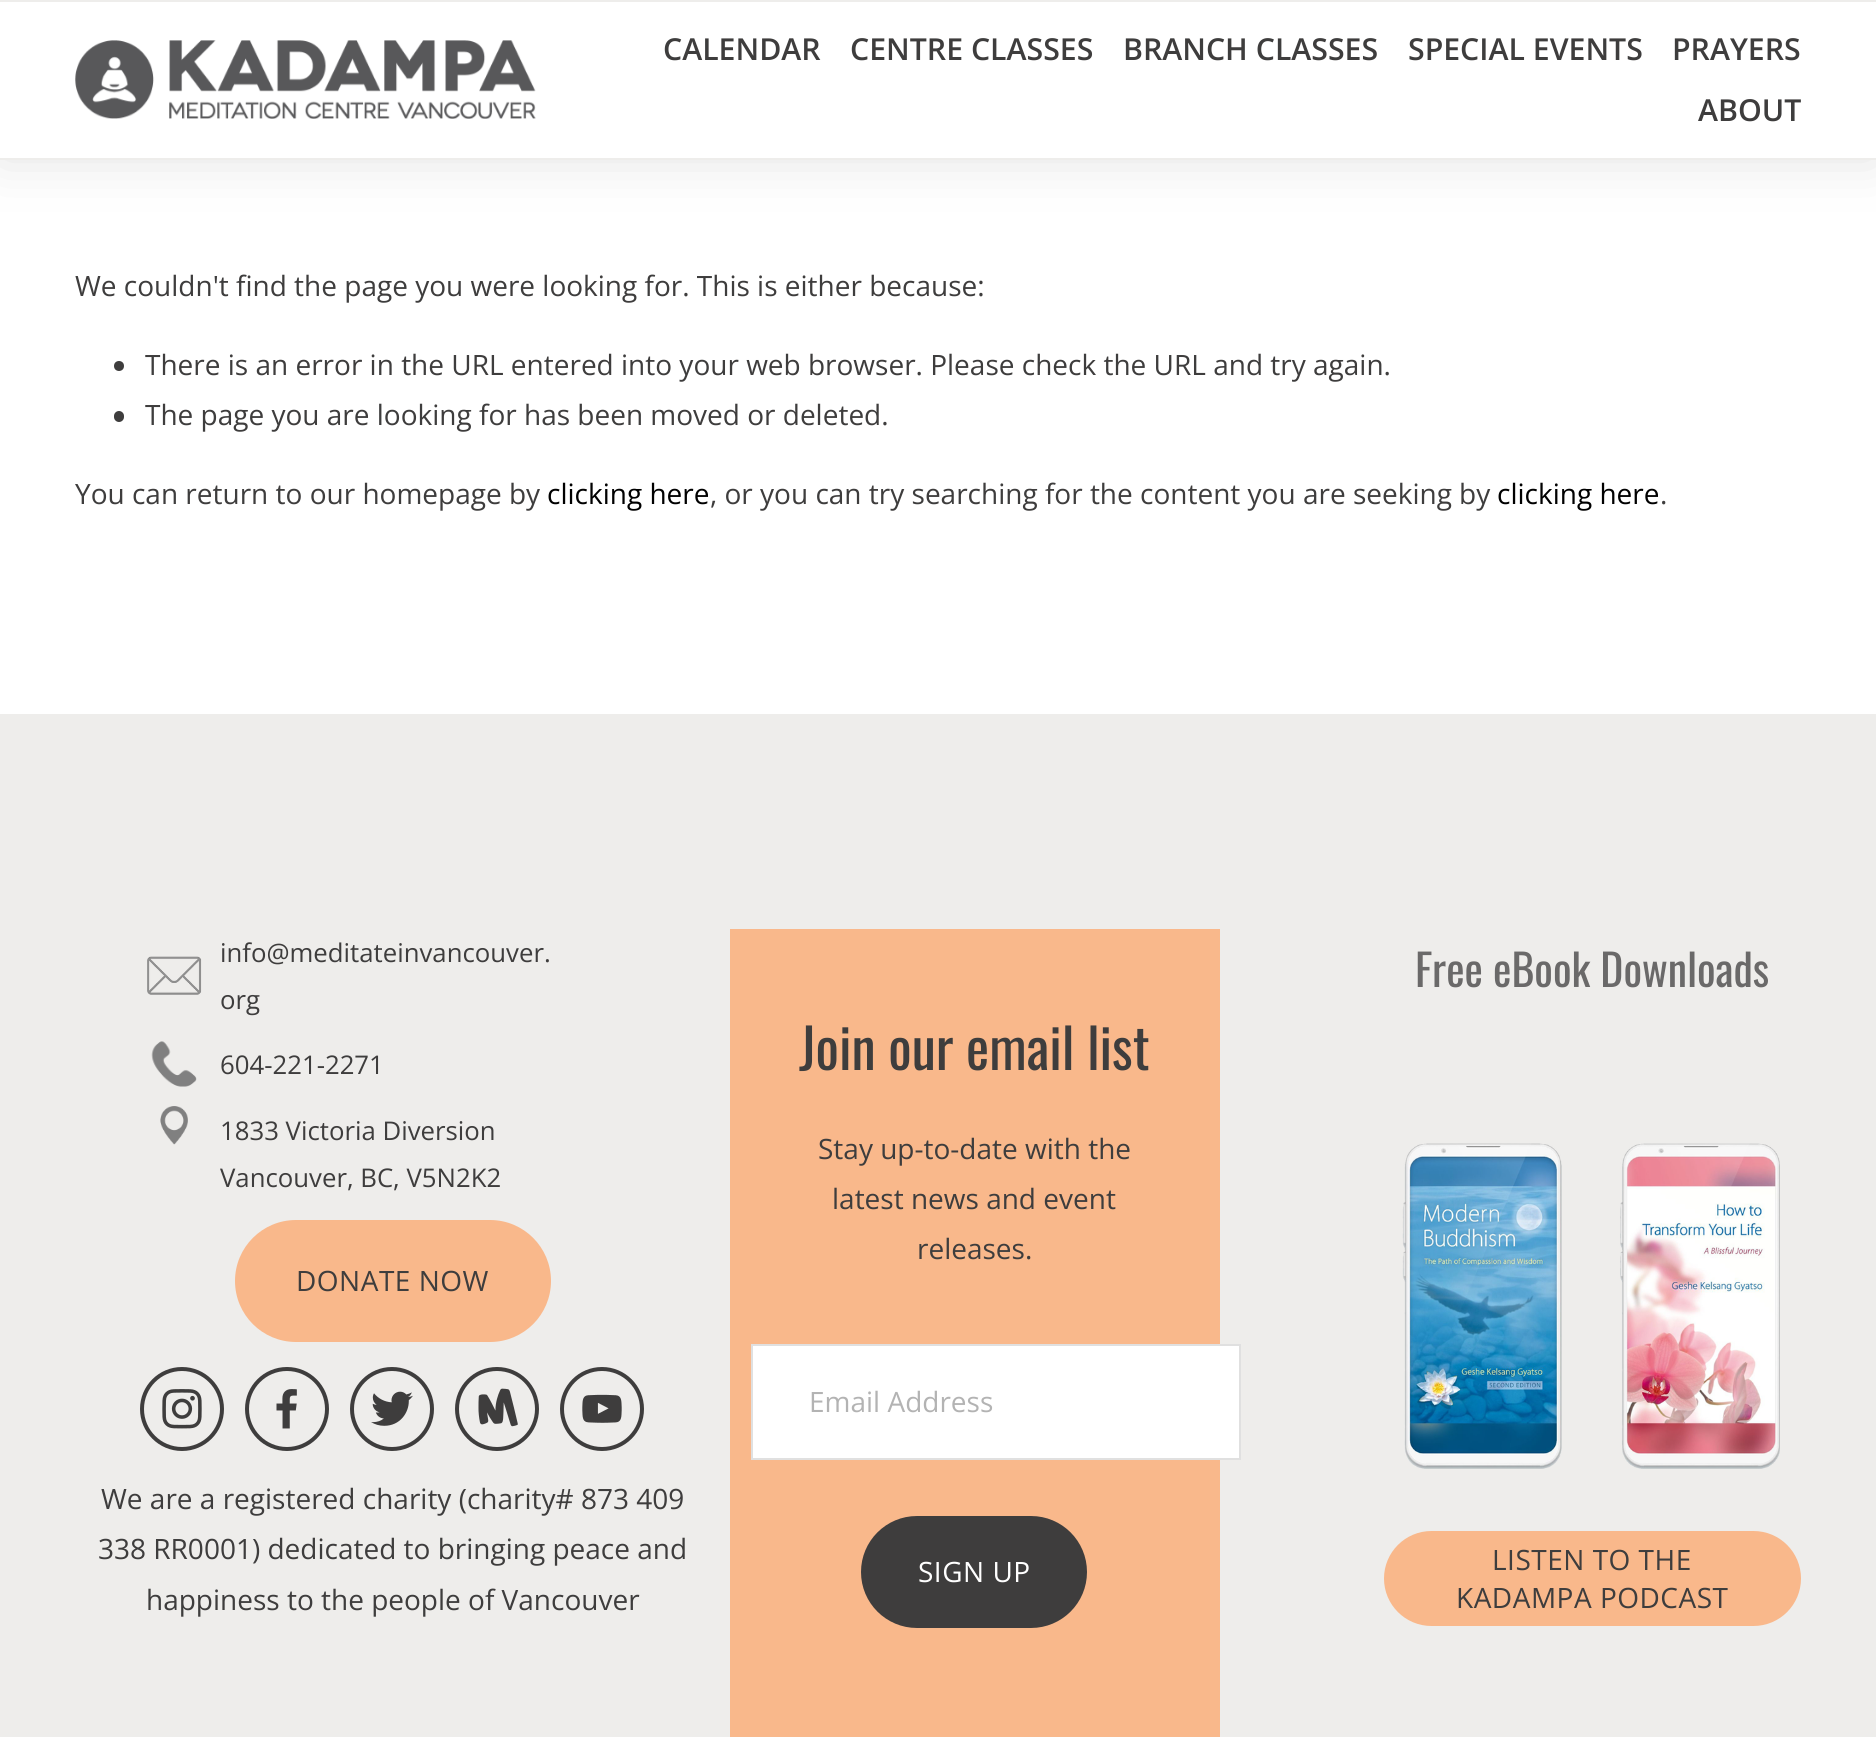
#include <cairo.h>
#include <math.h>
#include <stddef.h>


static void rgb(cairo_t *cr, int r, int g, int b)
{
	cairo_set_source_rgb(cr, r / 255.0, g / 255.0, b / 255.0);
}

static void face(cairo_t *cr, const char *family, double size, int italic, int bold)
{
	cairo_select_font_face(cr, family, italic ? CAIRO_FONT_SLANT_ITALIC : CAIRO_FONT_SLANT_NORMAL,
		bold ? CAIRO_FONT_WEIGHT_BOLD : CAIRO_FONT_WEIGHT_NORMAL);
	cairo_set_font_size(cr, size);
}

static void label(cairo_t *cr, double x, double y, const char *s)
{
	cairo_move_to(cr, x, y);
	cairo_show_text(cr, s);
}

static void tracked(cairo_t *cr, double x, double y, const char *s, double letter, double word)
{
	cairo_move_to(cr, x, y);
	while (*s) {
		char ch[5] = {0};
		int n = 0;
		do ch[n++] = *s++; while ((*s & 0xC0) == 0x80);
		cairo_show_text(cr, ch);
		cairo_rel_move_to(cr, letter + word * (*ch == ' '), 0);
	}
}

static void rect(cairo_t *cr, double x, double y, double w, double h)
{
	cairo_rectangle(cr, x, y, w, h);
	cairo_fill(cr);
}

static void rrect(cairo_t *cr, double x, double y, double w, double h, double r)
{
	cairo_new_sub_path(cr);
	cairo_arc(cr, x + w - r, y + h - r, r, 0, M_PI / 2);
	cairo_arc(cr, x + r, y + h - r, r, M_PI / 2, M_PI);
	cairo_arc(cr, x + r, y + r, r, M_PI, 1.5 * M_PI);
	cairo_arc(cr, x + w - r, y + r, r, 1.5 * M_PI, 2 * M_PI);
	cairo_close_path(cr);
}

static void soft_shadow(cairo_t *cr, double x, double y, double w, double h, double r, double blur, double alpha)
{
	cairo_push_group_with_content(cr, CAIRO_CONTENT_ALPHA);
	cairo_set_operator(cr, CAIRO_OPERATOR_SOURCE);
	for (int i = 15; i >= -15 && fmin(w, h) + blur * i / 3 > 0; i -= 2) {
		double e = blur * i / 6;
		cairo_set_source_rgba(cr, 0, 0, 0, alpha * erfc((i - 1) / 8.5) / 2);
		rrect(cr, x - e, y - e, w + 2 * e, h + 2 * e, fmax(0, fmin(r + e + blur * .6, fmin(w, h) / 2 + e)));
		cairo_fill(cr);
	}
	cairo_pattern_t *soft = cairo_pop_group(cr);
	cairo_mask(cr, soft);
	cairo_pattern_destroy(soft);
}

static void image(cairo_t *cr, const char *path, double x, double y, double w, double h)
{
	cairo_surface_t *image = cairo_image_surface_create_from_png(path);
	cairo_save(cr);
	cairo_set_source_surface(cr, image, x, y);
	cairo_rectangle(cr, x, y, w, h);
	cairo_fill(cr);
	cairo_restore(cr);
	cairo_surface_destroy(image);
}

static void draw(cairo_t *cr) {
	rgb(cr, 255, 255, 255);
	cairo_paint(cr);
	cairo_save(cr);
	cairo_rectangle(cr, 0, 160, 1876, 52);
	cairo_clip(cr);
	rgb(cr, 226, 226, 226);
	soft_shadow(cr, 0, 0, 1876, 159, 0, 26, 1);
	cairo_restore(cr);
	rgb(cr, 238, 237, 235);
	rect(cr, 0, 0, 1876, 2);
	rect(cr, 0, 158, 1876, 2);
	image(cr, "image0.png", 75, 40, 461, 79);
	face(cr, "Open Sans SemiBold", 30.25, 0, 0);
	rgb(cr, 62, 61, 61);
	label(cr, 663, 60, "CALENDAR");
	label(cr, 850, 60, "CENTRE CLASSES");
	label(cr, 1123, 60, "BRANCH CLASSES");
	label(cr, 1408, 60, "SPECIAL EVENTS");
	label(cr, 1672, 60, "PRAYERS");
	label(cr, 1698, 121, "ABOUT");
	face(cr, "Open Sans", 28, 0, 0);
	label(cr, 75, 296, "We couldn't find the page you were looking for. This is either because:");
	cairo_new_path(cr);
	cairo_arc(cr, 119, 366, 5, 0, 2 * M_PI);
	cairo_fill(cr);
	label(cr, 145, 375, "There is an error in the URL entered into your web browser. Please check the URL and try again.");
	rrect(cr, 114, 411, 10, 11, 5);
	cairo_fill(cr);
	label(cr, 145, 425, "The page you are looking for has been moved or deleted.");
	label(cr, 75, 504, "You can return to our homepage by");
	rgb(cr, 0, 0, 0);
	label(cr, 547, 504, "clicking here");
	rgb(cr, 62, 61, 61);
	label(cr, 710, 504, ", or you can try searching for the content you are seeking by");
	rgb(cr, 0, 0, 0);
	label(cr, 1497, 504, "clicking here");
	rgb(cr, 62, 61, 61);
	label(cr, 1660, 504, ".");
	rgb(cr, 238, 237, 235);
	rect(cr, 0, 714, 1876, 1023);
	image(cr, "image1.png", 147, 956, 55, 39);
	face(cr, "Open Sans", 25.75, 0, 0);
	rgb(cr, 62, 61, 61);
	label(cr, 220, 962, "info@meditateinvancouver.");
	label(cr, 220, 1009, "org");
	face(cr, "Oswald", 43.75, 0, 0);
	rgb(cr, 106, 105, 105);
	label(cr, 1415, 987, "Free eBook Downloads");
	image(cr, "image2.png", 151, 1041, 46, 46);
	face(cr, "Open Sans", 25.75, 0, 0);
	rgb(cr, 62, 61, 61);
	label(cr, 220, 1074, "604-221-2271");
	rgb(cr, 249, 184, 139);
	rect(cr, 730, 929, 490, 808);
	face(cr, "Oswald", 55, 0, 0);
	rgb(cr, 62, 61, 61);
	label(cr, 799, 1070, "Join our email list");
	face(cr, "Open Sans", 28, 0, 0);
	label(cr, 818, 1159, "Stay up-to-date with the");
	label(cr, 832, 1209, "latest news and event");
	label(cr, 917, 1259, "releases.");
	rgb(cr, 255, 255, 255);
	cairo_rectangle(cr, 752, 1345, 488, 114);
	cairo_fill_preserve(cr);
	rgb(cr, 224, 224, 224);
	cairo_stroke(cr);
	rgb(cr, 179, 179, 179);
	label(cr, 809, 1412, "Email Address");
	rgb(cr, 62, 61, 61);
	rrect(cr, 861, 1516, 226, 112, 56);
	cairo_fill(cr);
	rgb(cr, 255, 255, 255);
	tracked(cr, 918, 1582, "SIGN UP", 0.5, 0);
	image(cr, "image3.png", 160, 1106, 28, 39);
	face(cr, "Open Sans", 25.75, 0, 0);
	rgb(cr, 62, 61, 61);
	label(cr, 220, 1140, "1833 Victoria Diversion");
	label(cr, 220, 1187, "Vancouver, BC, V5N2K2");
	image(cr, "image4.png", 1402, 1143, 160, 326);
	image(cr, "image5.png", 1620, 1143, 160, 326);
	rgb(cr, 249, 184, 139);
	rrect(cr, 235, 1220, 316, 122, 61);
	cairo_fill(cr);
	face(cr, "Open Sans", 28, 0, 0);
	rgb(cr, 62, 61, 61);
	tracked(cr, 296, 1291, "DONATE NOW", 0.5, 0);
	cairo_new_path(cr);
	cairo_arc(cr, 182, 1409, 40, 0, 2 * M_PI);
	cairo_set_line_width(cr, 4);
	cairo_stroke(cr);
	image(cr, "image6.png", 162, 1389, 40, 40);
	cairo_arc(cr, 287, 1409, 40, 0, 2 * M_PI);
	cairo_stroke(cr);
	image(cr, "image7.png", 276, 1389, 21, 40);
	cairo_arc(cr, 392, 1409, 40, 0, 2 * M_PI);
	cairo_stroke(cr);
	image(cr, "image8.png", 371, 1391, 42, 35);
	cairo_arc(cr, 497, 1409, 40, 0, 2 * M_PI);
	cairo_stroke(cr);
	image(cr, "image9.png", 478, 1388, 40, 39);
	cairo_arc(cr, 602, 1409, 40, 0, 2 * M_PI);
	cairo_stroke(cr);
	image(cr, "image10.png", 582, 1394, 40, 29);
	label(cr, 101, 1509, "We are a registered charity (charity# 873 409");
	label(cr, 98, 1559, "338 RR0001) dedicated to bringing peace and");
	label(cr, 146, 1610, "happiness to the people of Vancouver");
	rgb(cr, 249, 184, 139);
	rrect(cr, 1384, 1531, 417, 95, 47.5);
	cairo_fill(cr);
	rgb(cr, 62, 61, 61);
	tracked(cr, 1492, 1570, "LISTEN TO THE", 0.5, 0);
	tracked(cr, 1456, 1608, "KADAMPA PODCAST", 0.5, 0);
}

int main(void) {
	cairo_surface_t *surface = cairo_image_surface_create(CAIRO_FORMAT_RGB24, 1876, 1737);
	cairo_t *cr = cairo_create(surface);
	cairo_font_options_t *options = cairo_font_options_create();
	cairo_font_options_set_hint_metrics(options, CAIRO_HINT_METRICS_OFF);
	cairo_font_options_set_hint_style(options, CAIRO_HINT_STYLE_NONE);
	cairo_set_font_options(cr, options);
	cairo_set_miter_limit(cr, 4);
	draw(cr);
	cairo_surface_write_to_png(surface, "render.png");
	cairo_font_options_destroy(options);
	cairo_destroy(cr);
	cairo_surface_destroy(surface);
	return 0;
}
